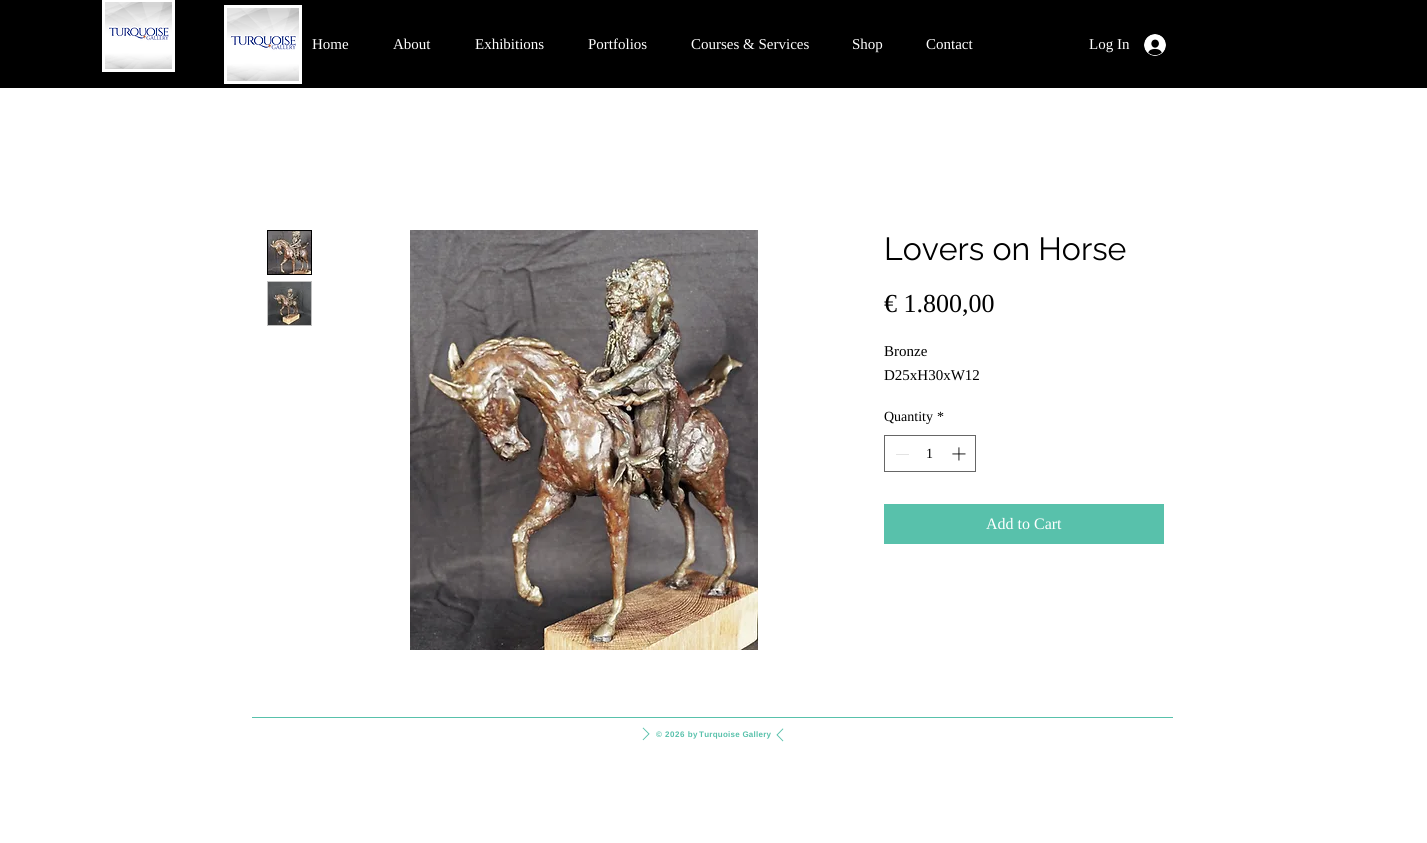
#include <cairo.h>
#include <math.h>
#include <stddef.h>


static void rgb(cairo_t *cr, int r, int g, int b)
{
	cairo_set_source_rgb(cr, r / 255.0, g / 255.0, b / 255.0);
}

static void face(cairo_t *cr, const char *family, double size, int italic, int bold)
{
	cairo_select_font_face(cr, family, italic ? CAIRO_FONT_SLANT_ITALIC : CAIRO_FONT_SLANT_NORMAL,
		bold ? CAIRO_FONT_WEIGHT_BOLD : CAIRO_FONT_WEIGHT_NORMAL);
	cairo_set_font_size(cr, size);
}

static void label(cairo_t *cr, double x, double y, const char *s)
{
	cairo_move_to(cr, x, y);
	cairo_show_text(cr, s);
}

static void tracked(cairo_t *cr, double x, double y, const char *s, double letter, double word)
{
	cairo_move_to(cr, x, y);
	while (*s) {
		char ch[5] = {0};
		int n = 0;
		do ch[n++] = *s++; while ((*s & 0xC0) == 0x80);
		cairo_show_text(cr, ch);
		cairo_rel_move_to(cr, letter + word * (*ch == ' '), 0);
	}
}

static void rect(cairo_t *cr, double x, double y, double w, double h)
{
	cairo_rectangle(cr, x, y, w, h);
	cairo_fill(cr);
}

static void image(cairo_t *cr, const char *path, double x, double y, double w, double h)
{
	cairo_surface_t *image = cairo_image_surface_create_from_png(path);
	cairo_save(cr);
	cairo_set_source_surface(cr, image, x, y);
	cairo_rectangle(cr, x, y, w, h);
	cairo_fill(cr);
	cairo_restore(cr);
	cairo_surface_destroy(image);
}

static void draw(cairo_t *cr) {
	rgb(cr, 255, 255, 255);
	cairo_paint(cr);
	rgb(cr, 0, 0, 0);
	rect(cr, 0, 0, 1427, 88);
	rgb(cr, 255, 255, 255);
	rect(cr, 224, 5, 78, 79);
	image(cr, "image0.png", 227, 8, 72, 73);
	face(cr, "Liberation Serif", 15, 0, 0);
	label(cr, 312, 49, "Home");
	label(cr, 393, 49, "About");
	label(cr, 475, 49, "Exhibitions");
	label(cr, 588, 49, "Portfolios");
	label(cr, 691, 49, "Courses & Services");
	label(cr, 852, 49, "Shop");
	label(cr, 926, 49, "Contact");
	label(cr, 1089, 49, "Log In");
	image(cr, "image1.png", 1144, 34, 22, 22);
	rect(cr, 102, 0, 73, 72);
	image(cr, "image2.png", 105, 2, 67, 67);
	cairo_rectangle(cr, 267.5, 230.5, 44, 44);
	rgb(cr, 0, 0, 0);
	cairo_set_line_width(cr, 1);
	cairo_stroke(cr);
	image(cr, "image3.png", 268, 231, 43, 43);
	rgb(cr, 191, 191, 191);
	rect(cr, 267, 281, 45, 45);
	image(cr, "image4.png", 268, 282, 43, 43);
	image(cr, "image5.png", 410, 230, 348, 420);
	face(cr, "Raleway", 32, 0, 0);
	rgb(cr, 0, 0, 0);
	label(cr, 884, 260, "Lovers on Horse");
	face(cr, "Liberation Serif", 26, 0, 0);
	label(cr, 884, 312, "€ 1.800,00");
	face(cr, "Liberation Serif", 15, 0, 0);
	label(cr, 884, 356, "Bronze");
	label(cr, 884, 380, "D25xH30xW12");
	face(cr, "Liberation Serif", 14, 0, 0);
	label(cr, 884, 421, "Quantity");
	label(cr, 937, 421, "*");
	cairo_rectangle(cr, 884.5, 435.5, 91, 36);
	rgb(cr, 102, 102, 102);
	cairo_stroke(cr);
	rgb(cr, 227, 227, 227);
	rect(cr, 896, 454, 13, 1);
	rgb(cr, 0, 0, 0);
	label(cr, 926, 458, "1");
	image(cr, "image6.png", 952, 447, 14, 14);
	rgb(cr, 88, 193, 171);
	rect(cr, 884, 504, 280, 40);
	face(cr, "Liberation Serif", 16, 0, 0);
	rgb(cr, 255, 255, 255);
	label(cr, 986, 529, "Add to Cart");
	rgb(cr, 88, 193, 171);
	rect(cr, 252, 717, 921, 1);
	image(cr, "image7.png", 642, 727, 8, 14);
	face(cr, "Liberation Sans", 8, 0, 1);
	tracked(cr, 656, 737, "© 2026 by", 0.5, 0);
	tracked(cr, 699, 737, "Turquoise Gallery", 0.25, 0);
	image(cr, "image8.png", 776, 728, 8, 14);
}

int main(void) {
	cairo_surface_t *surface = cairo_image_surface_create(CAIRO_FORMAT_RGB24, 1427, 843);
	cairo_t *cr = cairo_create(surface);
	cairo_font_options_t *options = cairo_font_options_create();
	cairo_font_options_set_hint_metrics(options, CAIRO_HINT_METRICS_OFF);
	cairo_font_options_set_hint_style(options, CAIRO_HINT_STYLE_NONE);
	cairo_set_font_options(cr, options);
	cairo_set_miter_limit(cr, 4);
	draw(cr);
	cairo_surface_write_to_png(surface, "render.png");
	cairo_font_options_destroy(options);
	cairo_destroy(cr);
	cairo_surface_destroy(surface);
	return 0;
}
